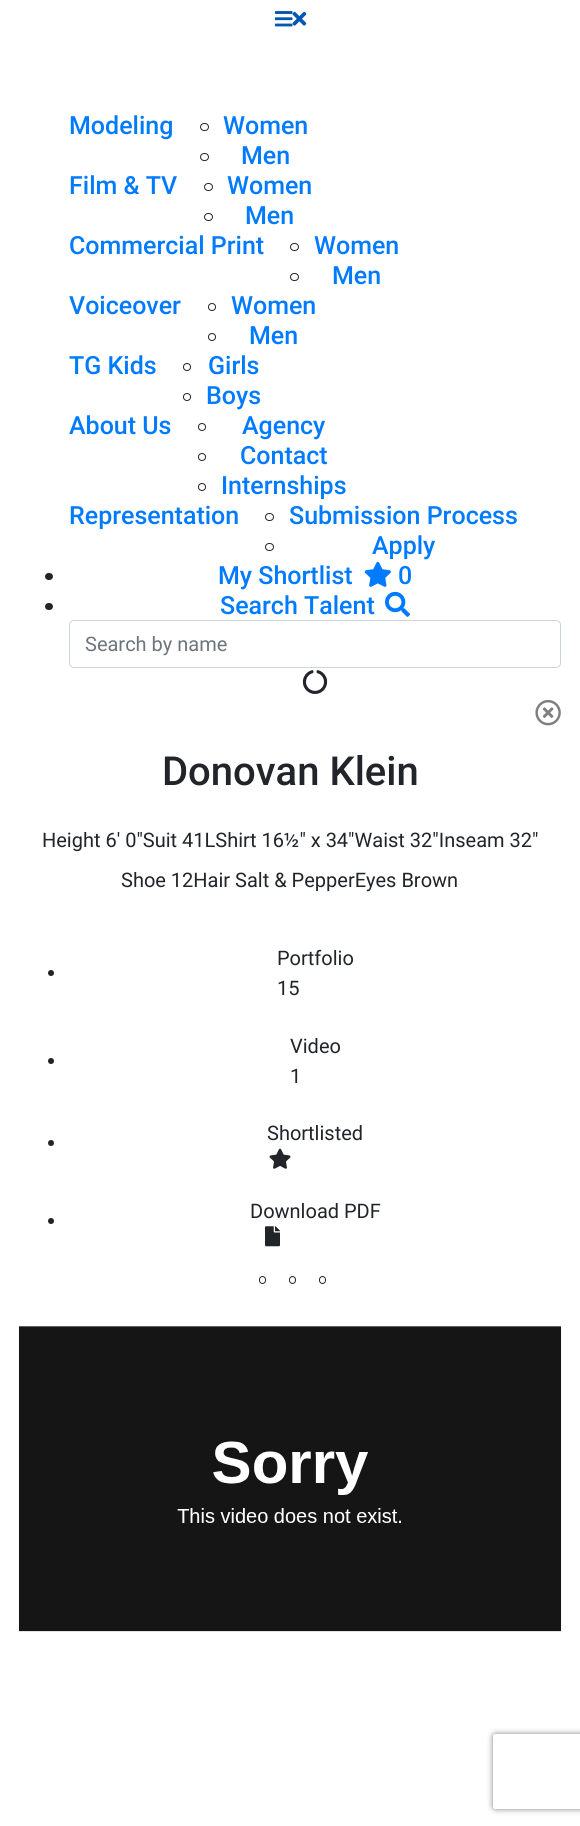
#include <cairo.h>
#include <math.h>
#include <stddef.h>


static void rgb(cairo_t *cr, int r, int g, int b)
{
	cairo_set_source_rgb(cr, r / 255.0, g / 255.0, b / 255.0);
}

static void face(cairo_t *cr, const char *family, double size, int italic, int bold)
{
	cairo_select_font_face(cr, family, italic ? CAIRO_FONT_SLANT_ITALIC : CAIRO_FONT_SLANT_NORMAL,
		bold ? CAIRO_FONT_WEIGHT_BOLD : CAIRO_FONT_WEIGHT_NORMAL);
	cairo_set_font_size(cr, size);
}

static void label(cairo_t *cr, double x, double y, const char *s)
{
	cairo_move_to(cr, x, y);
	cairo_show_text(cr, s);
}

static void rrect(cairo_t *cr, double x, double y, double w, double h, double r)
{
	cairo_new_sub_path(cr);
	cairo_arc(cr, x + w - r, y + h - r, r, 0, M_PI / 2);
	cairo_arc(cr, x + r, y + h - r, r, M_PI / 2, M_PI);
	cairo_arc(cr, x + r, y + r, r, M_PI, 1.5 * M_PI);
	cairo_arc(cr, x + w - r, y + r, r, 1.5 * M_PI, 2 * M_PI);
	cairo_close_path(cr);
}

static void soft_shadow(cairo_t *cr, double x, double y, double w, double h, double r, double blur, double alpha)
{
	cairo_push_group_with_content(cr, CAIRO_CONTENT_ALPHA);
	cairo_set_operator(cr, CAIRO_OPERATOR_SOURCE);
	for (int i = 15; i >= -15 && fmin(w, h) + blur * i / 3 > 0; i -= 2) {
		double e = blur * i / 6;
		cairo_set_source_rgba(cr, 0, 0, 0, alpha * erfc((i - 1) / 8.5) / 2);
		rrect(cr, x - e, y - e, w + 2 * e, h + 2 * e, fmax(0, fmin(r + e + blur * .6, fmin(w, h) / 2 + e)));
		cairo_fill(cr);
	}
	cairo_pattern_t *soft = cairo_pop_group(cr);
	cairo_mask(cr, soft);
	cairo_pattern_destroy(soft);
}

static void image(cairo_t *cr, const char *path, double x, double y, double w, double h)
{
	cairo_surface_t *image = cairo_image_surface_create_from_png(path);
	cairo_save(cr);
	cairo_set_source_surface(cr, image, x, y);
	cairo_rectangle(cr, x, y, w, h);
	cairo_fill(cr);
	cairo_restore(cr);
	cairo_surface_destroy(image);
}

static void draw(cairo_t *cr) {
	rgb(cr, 255, 255, 255);
	cairo_paint(cr);
	image(cr, "image0.png", 275, 11, 18, 16);
	image(cr, "image1.png", 292, 11, 15, 15);
	face(cr, "Roboto Medium", 25, 0, 0);
	rgb(cr, 0, 123, 255);
	label(cr, 69, 134, "Modeling");
	rrect(cr, 200.5, 123.5, 8, 7, 3.5);
	rgb(cr, 33, 37, 41);
	cairo_set_line_width(cr, 1);
	cairo_stroke(cr);
	rgb(cr, 0, 123, 255);
	label(cr, 223, 134, "Women");
	rrect(cr, 200.5, 153.5, 8, 7, 3.5);
	rgb(cr, 33, 37, 41);
	cairo_stroke(cr);
	rgb(cr, 0, 123, 255);
	label(cr, 241, 164, "Men");
	label(cr, 69, 194, "Film & TV");
	rrect(cr, 204.5, 183.5, 8, 7, 3.5);
	rgb(cr, 33, 37, 41);
	cairo_stroke(cr);
	rgb(cr, 0, 123, 255);
	label(cr, 227, 194, "Women");
	rrect(cr, 204.5, 213.5, 8, 7, 3.5);
	rgb(cr, 33, 37, 41);
	cairo_stroke(cr);
	rgb(cr, 0, 123, 255);
	label(cr, 245, 224, "Men");
	label(cr, 69, 254, "Commercial Print");
	rrect(cr, 290.5, 243.5, 8, 7, 3.5);
	rgb(cr, 33, 37, 41);
	cairo_stroke(cr);
	rgb(cr, 0, 123, 255);
	label(cr, 314, 254, "Women");
	rrect(cr, 290.5, 273.5, 8, 7, 3.5);
	rgb(cr, 33, 37, 41);
	cairo_stroke(cr);
	rgb(cr, 0, 123, 255);
	label(cr, 332, 284, "Men");
	label(cr, 69, 314, "Voiceover");
	cairo_new_path(cr);
	cairo_arc(cr, 212, 307, 3.5, 0, 2 * M_PI);
	rgb(cr, 33, 37, 41);
	cairo_stroke(cr);
	rgb(cr, 0, 123, 255);
	label(cr, 231, 314, "Women");
	cairo_new_path(cr);
	cairo_arc(cr, 212, 337, 3.5, 0, 2 * M_PI);
	rgb(cr, 33, 37, 41);
	cairo_stroke(cr);
	rgb(cr, 0, 123, 255);
	label(cr, 249, 344, "Men");
	label(cr, 69, 374, "TG Kids");
	cairo_new_path(cr);
	cairo_arc(cr, 187, 367, 3.5, 0, 2 * M_PI);
	rgb(cr, 33, 37, 41);
	cairo_stroke(cr);
	rgb(cr, 0, 123, 255);
	label(cr, 208, 374, "Girls");
	cairo_new_path(cr);
	cairo_arc(cr, 187, 397, 3.5, 0, 2 * M_PI);
	rgb(cr, 33, 37, 41);
	cairo_stroke(cr);
	rgb(cr, 0, 123, 255);
	label(cr, 206, 404, "Boys");
	label(cr, 69, 434, "About Us");
	cairo_new_path(cr);
	cairo_arc(cr, 202, 427, 3.5, 0, 2 * M_PI);
	rgb(cr, 33, 37, 41);
	cairo_stroke(cr);
	rgb(cr, 0, 123, 255);
	label(cr, 242, 434, "Agency");
	cairo_new_path(cr);
	cairo_arc(cr, 202, 457, 3.5, 0, 2 * M_PI);
	rgb(cr, 33, 37, 41);
	cairo_stroke(cr);
	rgb(cr, 0, 123, 255);
	label(cr, 240, 464, "Contact");
	cairo_new_path(cr);
	cairo_arc(cr, 202, 487, 3.5, 0, 2 * M_PI);
	rgb(cr, 33, 37, 41);
	cairo_stroke(cr);
	rgb(cr, 0, 123, 255);
	label(cr, 221, 494, "Internships");
	label(cr, 69, 524, "Representation");
	rrect(cr, 265.5, 513.5, 8, 7, 3.5);
	rgb(cr, 33, 37, 41);
	cairo_stroke(cr);
	rgb(cr, 0, 123, 255);
	label(cr, 289, 524, "Submission Process");
	rrect(cr, 265.5, 543.5, 8, 7, 3.5);
	rgb(cr, 33, 37, 41);
	cairo_stroke(cr);
	rgb(cr, 0, 123, 255);
	label(cr, 372, 554, "Apply");
	rgb(cr, 33, 37, 41);
	rrect(cr, 45, 573, 8, 7, 3.5);
	cairo_fill(cr);
	rgb(cr, 0, 123, 255);
	label(cr, 218, 584, "My Shortlist");
	image(cr, "image2.png", 364, 561, 27, 26);
	label(cr, 398, 584, "0");
	rgb(cr, 33, 37, 41);
	rrect(cr, 45, 603, 8, 7, 3.5);
	cairo_fill(cr);
	rgb(cr, 0, 123, 255);
	label(cr, 220, 614, "Search Talent");
	image(cr, "image3.png", 385, 591, 25, 26);
	rrect(cr, 69.5, 620.5, 491, 47, 4.5);
	rgb(cr, 206, 212, 218);
	cairo_stroke(cr);
	face(cr, "Roboto", 20, 0, 0);
	rgb(cr, 108, 117, 125);
	label(cr, 85, 651, "Search by name");
	image(cr, "image4.png", 302, 670, 26, 24);
	image(cr, "image5.png", 535, 700, 26, 26);
	face(cr, "Roboto Medium", 40, 0, 0);
	rgb(cr, 33, 37, 41);
	label(cr, 162, 785, "Donovan Klein");
	face(cr, "Roboto", 20, 0, 0);
	label(cr, 42, 847, "Height 6' 0\"Suit 41LShirt 16½\" x 34\"Waist 32\"Inseam 32\"");
	label(cr, 121, 887, "Shoe 12Hair Salt & PepperEyes Brown");
	cairo_new_path(cr);
	cairo_arc(cr, 51, 973, 3, 0, 2 * M_PI);
	cairo_fill(cr);
	label(cr, 277, 965, "Portfolio");
	label(cr, 277, 995, "15");
	cairo_new_path(cr);
	cairo_arc(cr, 51, 1061, 3, 0, 2 * M_PI);
	cairo_fill(cr);
	label(cr, 290, 1053, "Video");
	label(cr, 290, 1083, "1");
	label(cr, 267, 1140, "Shortlisted");
	image(cr, "image6.png", 269, 1148, 22, 21);
	cairo_arc(cr, 51, 1143, 3, 0, 2 * M_PI);
	cairo_fill(cr);
	label(cr, 250, 1218, "Download PDF");
	image(cr, "image7.png", 265, 1226, 15, 21);
	cairo_arc(cr, 51, 1221, 3, 0, 2 * M_PI);
	cairo_fill(cr);
	rrect(cr, 259.5, 1276.5, 6, 7, 3);
	cairo_stroke(cr);
	rrect(cr, 289.5, 1276.5, 6, 7, 3);
	cairo_stroke(cr);
	rrect(cr, 319.5, 1276.5, 6, 7, 3);
	cairo_stroke(cr);
	image(cr, "image8.png", 18, 1326, 544, 306);
	cairo_save(cr);
	cairo_set_fill_rule(cr, CAIRO_FILL_RULE_EVEN_ODD);
	cairo_new_path(cr);
	cairo_move_to(cr, 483, 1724);
	cairo_line_to(cr, 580, 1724);
	cairo_line_to(cr, 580, 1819);
	cairo_line_to(cr, 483, 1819);
	cairo_close_path(cr);
	cairo_move_to(cr, 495.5, 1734);
	cairo_line_to(cr, 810.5, 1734);
	cairo_curve_to(cr, 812, 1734, 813, 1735, 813, 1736.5);
	cairo_line_to(cr, 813, 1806.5);
	cairo_curve_to(cr, 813, 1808, 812, 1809, 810.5, 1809);
	cairo_line_to(cr, 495.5, 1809);
	cairo_curve_to(cr, 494, 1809, 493, 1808, 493, 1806.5);
	cairo_line_to(cr, 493, 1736.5);
	cairo_curve_to(cr, 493, 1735, 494, 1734, 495.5, 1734);
	cairo_close_path(cr);
	cairo_clip(cr);
	rgb(cr, 128, 128, 128);
	soft_shadow(cr, 493, 1734, 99, 75, 2.5, 3, 1);
	cairo_restore(cr);
}

int main(void) {
	cairo_surface_t *surface = cairo_image_surface_create(CAIRO_FORMAT_RGB24, 580, 1826);
	cairo_t *cr = cairo_create(surface);
	cairo_font_options_t *options = cairo_font_options_create();
	cairo_font_options_set_hint_metrics(options, CAIRO_HINT_METRICS_OFF);
	cairo_font_options_set_hint_style(options, CAIRO_HINT_STYLE_NONE);
	cairo_set_font_options(cr, options);
	cairo_set_miter_limit(cr, 4);
	draw(cr);
	cairo_surface_write_to_png(surface, "render.png");
	cairo_font_options_destroy(options);
	cairo_destroy(cr);
	cairo_surface_destroy(surface);
	return 0;
}
